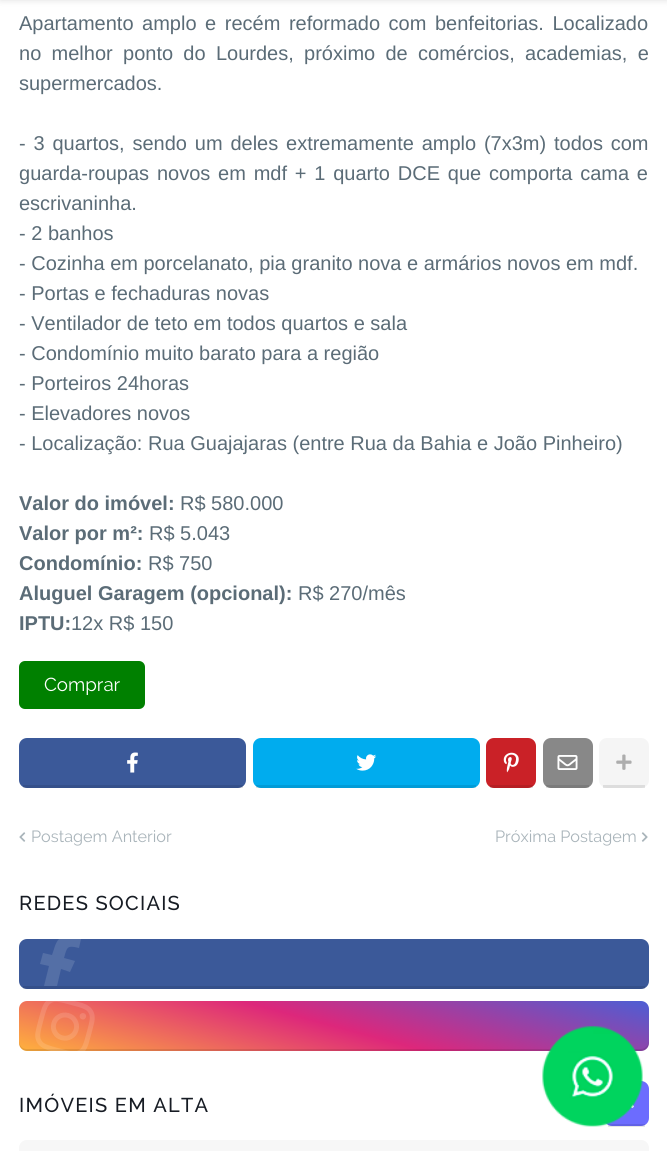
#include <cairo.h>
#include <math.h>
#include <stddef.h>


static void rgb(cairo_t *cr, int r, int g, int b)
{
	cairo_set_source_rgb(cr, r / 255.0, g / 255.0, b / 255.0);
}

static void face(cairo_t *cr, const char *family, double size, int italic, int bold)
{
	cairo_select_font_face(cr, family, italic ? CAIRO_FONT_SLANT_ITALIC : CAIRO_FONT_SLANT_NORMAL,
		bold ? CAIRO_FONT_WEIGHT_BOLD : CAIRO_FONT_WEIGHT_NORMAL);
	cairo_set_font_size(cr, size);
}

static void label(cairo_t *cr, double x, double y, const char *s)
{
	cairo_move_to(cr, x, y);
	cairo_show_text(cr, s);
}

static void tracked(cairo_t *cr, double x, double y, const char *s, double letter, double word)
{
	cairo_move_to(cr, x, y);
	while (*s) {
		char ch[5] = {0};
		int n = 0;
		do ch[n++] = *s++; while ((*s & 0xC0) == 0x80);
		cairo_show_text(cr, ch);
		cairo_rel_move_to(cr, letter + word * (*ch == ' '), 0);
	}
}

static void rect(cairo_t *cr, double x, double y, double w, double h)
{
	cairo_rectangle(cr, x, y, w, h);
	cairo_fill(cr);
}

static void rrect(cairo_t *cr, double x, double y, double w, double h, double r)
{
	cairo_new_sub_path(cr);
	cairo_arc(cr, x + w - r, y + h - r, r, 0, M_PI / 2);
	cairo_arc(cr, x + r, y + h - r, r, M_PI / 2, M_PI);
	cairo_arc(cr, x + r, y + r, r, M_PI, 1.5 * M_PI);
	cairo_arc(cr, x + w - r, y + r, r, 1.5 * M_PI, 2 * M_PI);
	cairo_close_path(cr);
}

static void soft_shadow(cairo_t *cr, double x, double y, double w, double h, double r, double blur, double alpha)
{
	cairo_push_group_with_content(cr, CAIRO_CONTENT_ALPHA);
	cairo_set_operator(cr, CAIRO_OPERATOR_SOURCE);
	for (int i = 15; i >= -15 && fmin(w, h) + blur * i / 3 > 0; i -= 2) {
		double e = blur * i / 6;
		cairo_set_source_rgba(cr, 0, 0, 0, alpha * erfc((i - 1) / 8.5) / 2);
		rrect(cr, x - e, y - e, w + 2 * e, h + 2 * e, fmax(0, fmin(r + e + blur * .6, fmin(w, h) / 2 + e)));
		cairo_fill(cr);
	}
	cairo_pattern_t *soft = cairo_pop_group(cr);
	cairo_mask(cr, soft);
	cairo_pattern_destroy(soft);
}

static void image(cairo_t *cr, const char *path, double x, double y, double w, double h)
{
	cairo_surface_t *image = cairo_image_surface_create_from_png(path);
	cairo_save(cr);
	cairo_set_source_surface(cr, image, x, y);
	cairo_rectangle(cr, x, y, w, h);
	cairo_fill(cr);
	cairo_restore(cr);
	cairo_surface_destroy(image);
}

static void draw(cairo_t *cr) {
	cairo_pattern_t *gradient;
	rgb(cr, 255, 255, 255);
	cairo_paint(cr);
	rgb(cr, 0, 0, 0);
	soft_shadow(cr, 0, -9, 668, 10, 0, 3, 0.1);
	face(cr, "Liberation Sans", 20, 0, 0);
	rgb(cr, 91, 108, 119);
	tracked(cr, 19, 30, "Apartamento amplo e recém reformado com benfeitorias. Localizado", 0, 3);
	tracked(cr, 19, 60, "no melhor ponto do Lourdes, próximo de comércios, academias, e", 0, 4.75);
	label(cr, 19, 90, "supermercados.");
	tracked(cr, 19, 150, "- 3 quartos, sendo um deles extremamente amplo (7x3m) todos com", 0, 2.25);
	tracked(cr, 19, 180, "guarda-roupas novos em mdf + 1 quarto DCE que comporta cama e", 0, 2.25);
	label(cr, 19, 210, "escrivaninha.");
	label(cr, 19, 240, "- 2 banhos");
	label(cr, 19, 270, "- Cozinha em porcelanato, pia granito nova e armários novos em mdf.");
	label(cr, 19, 300, "- Portas e fechaduras novas");
	label(cr, 19, 330, "- Ventilador de teto em todos quartos e sala");
	label(cr, 19, 360, "- Condomínio muito barato para a região");
	label(cr, 19, 390, "- Porteiros 24horas");
	label(cr, 19, 420, "- Elevadores novos");
	label(cr, 19, 450, "- Localização: Rua Guajajaras (entre Rua da Bahia e João Pinheiro)");
	face(cr, "Liberation Sans", 20, 0, 1);
	label(cr, 19, 510, "Valor do imóvel:");
	face(cr, "Liberation Sans", 20, 0, 0);
	label(cr, 180, 510, "R$ 580.000");
	face(cr, "Liberation Sans", 20, 0, 1);
	label(cr, 19, 540, "Valor por m²:");
	face(cr, "Liberation Sans", 20, 0, 0);
	label(cr, 149, 540, "R$ 5.043");
	face(cr, "Liberation Sans", 20, 0, 1);
	label(cr, 19, 570, "Condomínio:");
	face(cr, "Liberation Sans", 20, 0, 0);
	label(cr, 148, 570, "R$ 750");
	face(cr, "Liberation Sans", 20, 0, 1);
	label(cr, 19, 600, "Aluguel Garagem (opcional):");
	face(cr, "Liberation Sans", 20, 0, 0);
	label(cr, 298, 600, "R$ 270/mês");
	face(cr, "Liberation Sans", 20, 0, 1);
	label(cr, 19, 630, "IPTU:");
	face(cr, "Liberation Sans", 20, 0, 0);
	label(cr, 71, 630, "12x R$ 150");
	rgb(cr, 0, 128, 0);
	rrect(cr, 19, 661, 126, 48, 6);
	cairo_fill(cr);
	face(cr, "Raleway", 18.75, 0, 0);
	rgb(cr, 255, 255, 255);
	label(cr, 44, 691, "Comprar");
	rgb(cr, 59, 89, 153);
	rrect(cr, 19, 738, 227, 50, 8);
	cairo_fill(cr);
	cairo_set_source_rgba(cr, 0, 0, 0, 0.1);
	rect(cr, 23, 785, 220, 3);
	image(cr, "image0.png", 127, 752, 11, 21);
	rgb(cr, 0, 172, 238);
	rrect(cr, 253, 738, 227, 50, 8);
	cairo_fill(cr);
	cairo_set_source_rgba(cr, 0, 0, 0, 0.1);
	rect(cr, 256, 785, 220, 3);
	image(cr, "image1.png", 356, 754, 21, 17);
	rgb(cr, 202, 33, 39);
	rrect(cr, 486, 738, 50, 50, 8);
	cairo_fill(cr);
	cairo_set_source_rgba(cr, 0, 0, 0, 0.1);
	rect(cr, 490, 785, 43, 3);
	image(cr, "image2.png", 503, 752, 16, 21);
	rgb(cr, 136, 136, 136);
	rrect(cr, 543, 738, 50, 50, 8);
	cairo_fill(cr);
	cairo_set_source_rgba(cr, 0, 0, 0, 0.1);
	rect(cr, 546, 785, 43, 3);
	image(cr, "image3.png", 557, 755, 21, 15);
	rgb(cr, 245, 245, 245);
	rrect(cr, 599, 738, 50, 50, 8);
	cairo_fill(cr);
	cairo_set_source_rgba(cr, 0, 0, 0, 0.1);
	rect(cr, 603, 785, 42, 3);
	image(cr, "image4.png", 616, 754, 16, 16);
	image(cr, "image5.png", 19, 832, 7, 10);
	face(cr, "Raleway", 16.25, 0, 0);
	rgb(cr, 169, 180, 186);
	label(cr, 31, 842, "Postagem Anterior");
	label(cr, 495, 842, "Próxima Postagem");
	image(cr, "image6.png", 641, 832, 7, 10);
	face(cr, "Raleway Medium", 20, 0, 0);
	rgb(cr, 23, 28, 36);
	tracked(cr, 19, 910, "REDES SOCIAIS", 1.25, 0);
	rgb(cr, 59, 89, 153);
	rrect(cr, 19, 939, 630, 50, 8);
	cairo_fill(cr);
	cairo_set_source_rgba(cr, 0, 0, 0, 0.1);
	rect(cr, 23, 986, 622, 3);
	rgb(cr, 84, 111, 166);
	cairo_new_path(cr);
	cairo_move_to(cr, 70, 972);
	cairo_line_to(cr, 75, 961);
	cairo_line_to(cr, 64, 958);
	cairo_curve_to(cr, 67, 947, 67, 945, 79, 948);
	cairo_line_to(cr, 81, 939);
	cairo_line_to(cr, 59, 939);
	cairo_curve_to(cr, 55, 943, 54, 950, 52, 955);
	cairo_line_to(cr, 43, 953);
	cairo_line_to(cr, 40, 964);
	cairo_line_to(cr, 49, 966);
	cairo_line_to(cr, 44, 986);
	cairo_line_to(cr, 57, 986);
	cairo_line_to(cr, 61, 969);
	cairo_close_path(cr);
	cairo_fill(cr);
	gradient = cairo_pattern_create_linear(306, 1128, 361, 924);
	cairo_pattern_add_color_stop_rgba(gradient, 0, 1, 0.694, 0.239, 1);
	cairo_pattern_add_color_stop_rgba(gradient, 0.5, 0.867, 0.153, 0.482, 1);
	cairo_pattern_add_color_stop_rgba(gradient, 1, 0.302, 0.369, 0.831, 1);
	cairo_set_source(cr, gradient);
	cairo_pattern_destroy(gradient);
	rrect(cr, 19, 1001, 630, 50, 8);
	cairo_fill(cr);
	cairo_set_source_rgba(cr, 0, 0, 0, 0.1);
	cairo_new_path(cr);
	cairo_move_to(cr, 19, 1041);
	cairo_line_to(cr, 19, 1043);
	cairo_curve_to(cr, 19, 1047, 23, 1051, 27, 1051);
	cairo_line_to(cr, 641, 1051);
	cairo_curve_to(cr, 645, 1051, 649, 1047, 649, 1043);
	cairo_line_to(cr, 649, 1041);
	cairo_curve_to(cr, 649, 1045, 645, 1049, 641, 1049);
	cairo_line_to(cr, 26, 1049);
	cairo_curve_to(cr, 22, 1049, 19, 1045, 19, 1041);
	cairo_close_path(cr);
	cairo_fill(cr);
	image(cr, "image7.png", 35, 1001, 60, 50);
	rgb(cr, 23, 28, 36);
	tracked(cr, 19, 1112, "IMÓVEIS EM ALTA", 1.25, 0);
	rgb(cr, 247, 247, 247);
	rrect(cr, 19, 1140, 630, 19, 8);
	cairo_fill(cr);
	rgb(cr, 108, 108, 254);
	rrect(cr, 604, 1081, 45, 45, 8);
	cairo_fill(cr);
	cairo_set_source_rgba(cr, 0, 0, 0, 0.1);
	rect(cr, 608, 1124, 37, 3);
	image(cr, "image9.png", 630, 1104, 4, 4);
	image(cr, "image8.png", 542, 1026, 101, 101);
}

int main(void) {
	cairo_surface_t *surface = cairo_image_surface_create(CAIRO_FORMAT_RGB24, 667, 1151);
	cairo_t *cr = cairo_create(surface);
	cairo_font_options_t *options = cairo_font_options_create();
	cairo_font_options_set_hint_metrics(options, CAIRO_HINT_METRICS_OFF);
	cairo_font_options_set_hint_style(options, CAIRO_HINT_STYLE_NONE);
	cairo_set_font_options(cr, options);
	cairo_set_miter_limit(cr, 4);
	draw(cr);
	cairo_surface_write_to_png(surface, "render.png");
	cairo_font_options_destroy(options);
	cairo_destroy(cr);
	cairo_surface_destroy(surface);
	return 0;
}
